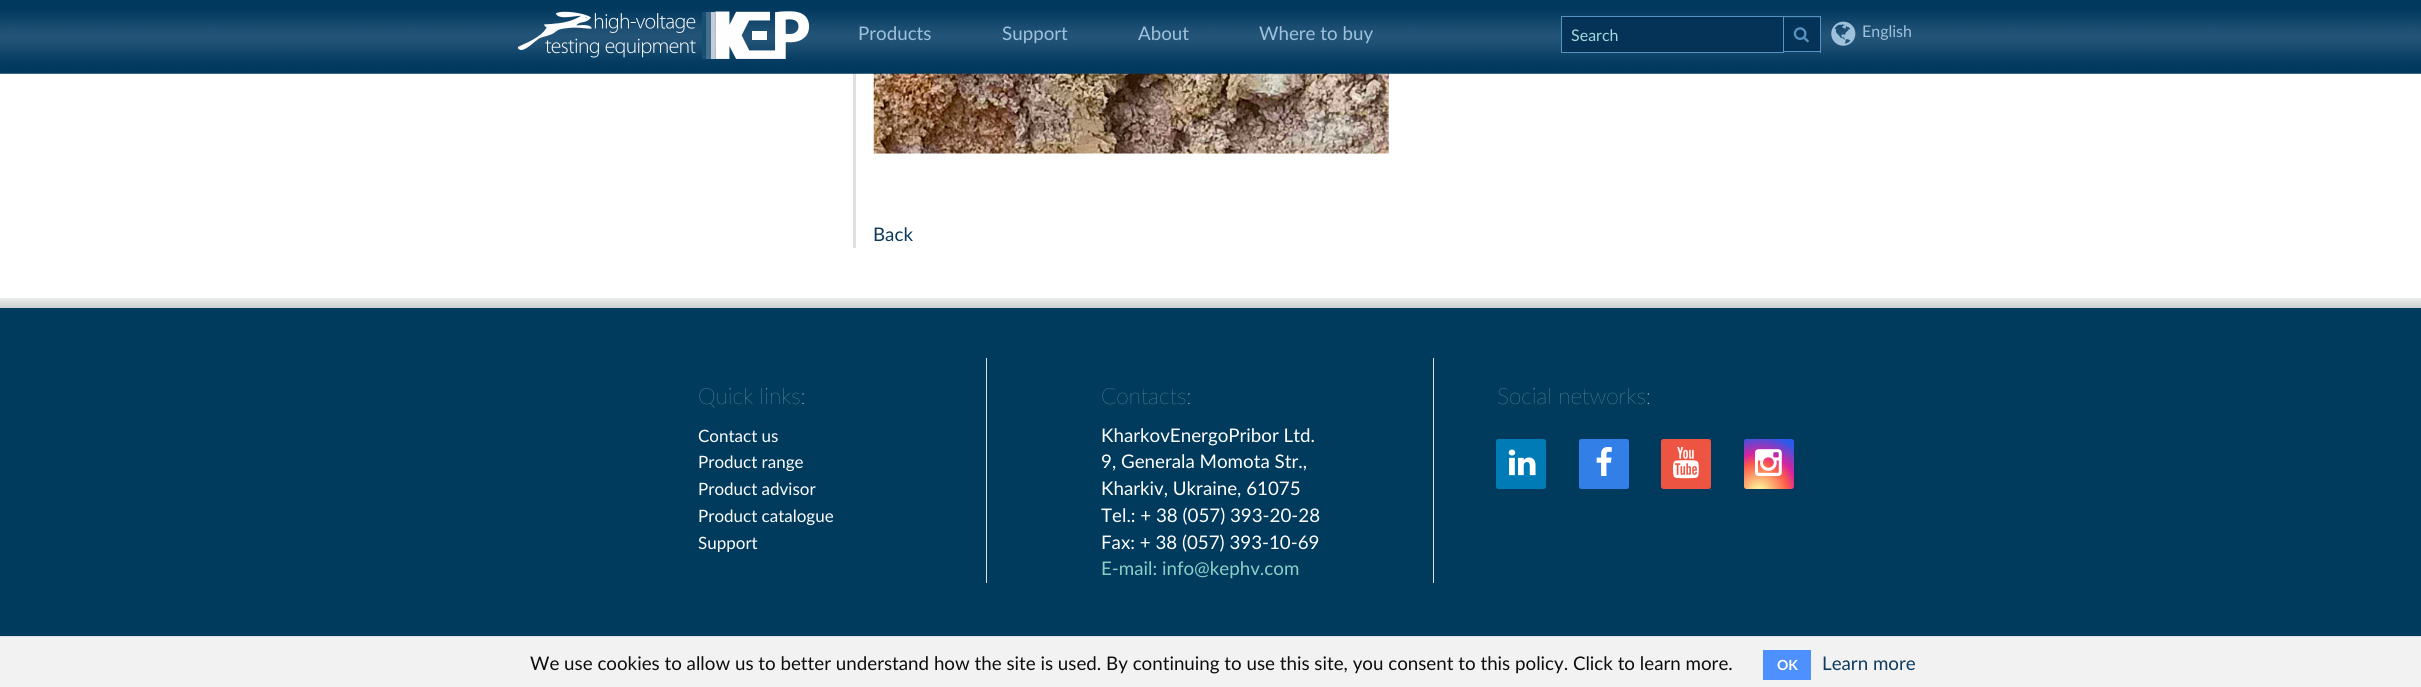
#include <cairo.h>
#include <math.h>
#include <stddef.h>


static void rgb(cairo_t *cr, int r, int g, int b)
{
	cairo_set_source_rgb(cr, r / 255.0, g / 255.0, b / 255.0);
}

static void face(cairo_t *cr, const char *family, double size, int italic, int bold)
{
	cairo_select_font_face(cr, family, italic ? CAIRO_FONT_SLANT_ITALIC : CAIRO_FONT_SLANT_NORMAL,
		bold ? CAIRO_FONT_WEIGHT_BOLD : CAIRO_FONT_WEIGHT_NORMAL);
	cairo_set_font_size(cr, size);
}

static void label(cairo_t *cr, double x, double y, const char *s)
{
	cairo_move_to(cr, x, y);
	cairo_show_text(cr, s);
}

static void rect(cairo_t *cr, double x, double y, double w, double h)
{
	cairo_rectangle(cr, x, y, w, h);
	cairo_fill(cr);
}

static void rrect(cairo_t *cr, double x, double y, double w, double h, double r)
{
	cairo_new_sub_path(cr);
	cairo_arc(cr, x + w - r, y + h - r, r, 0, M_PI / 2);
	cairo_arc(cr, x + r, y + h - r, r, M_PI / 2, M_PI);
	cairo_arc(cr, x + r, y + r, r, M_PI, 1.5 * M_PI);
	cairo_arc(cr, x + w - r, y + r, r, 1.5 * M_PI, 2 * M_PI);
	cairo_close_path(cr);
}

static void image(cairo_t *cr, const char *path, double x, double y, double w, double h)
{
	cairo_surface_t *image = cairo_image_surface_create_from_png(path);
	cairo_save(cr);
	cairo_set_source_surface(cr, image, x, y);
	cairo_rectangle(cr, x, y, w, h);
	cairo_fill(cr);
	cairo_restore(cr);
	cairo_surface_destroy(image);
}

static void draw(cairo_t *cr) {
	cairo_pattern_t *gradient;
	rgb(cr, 255, 255, 255);
	cairo_paint(cr);
	rgb(cr, 223, 223, 223);
	rect(cr, 853, 73, 3, 175);
	image(cr, "image4.png", 873, 73, 516, 81);
	image(cr, "image0.png", 0, 0, 2421, 74);
	image(cr, "image1.png", 518, 11, 291, 48);
	face(cr, "Lato", 18.75, 0, 0);
	rgb(cr, 158, 193, 220);
	label(cr, 858, 40, "Products");
	label(cr, 1002, 40, "Support");
	label(cr, 1138, 40, "About");
	label(cr, 1259, 40, "Where to buy");
	rgb(cr, 5, 51, 87);
	rect(cr, 1562, 17, 221, 35);
	rgb(cr, 5, 47, 80);
	rect(cr, 1563, 18, 220, 1);
	rgb(cr, 86, 147, 194);
	rect(cr, 1783, 16, 38, 1);
	rect(cr, 1820, 16, 1, 37);
	rect(cr, 1783, 51, 38, 1);
	cairo_rectangle(cr, 1561.5, 16.5, 222, 36);
	cairo_set_line_width(cr, 1);
	cairo_stroke(cr);
	face(cr, "Lato", 16, 0, 0);
	rgb(cr, 159, 219, 220);
	label(cr, 1571, 41, "Search");
	rgb(cr, 5, 51, 87);
	rect(cr, 1784, 18, 36, 33);
	image(cr, "image2.png", 1793, 27, 16, 16);
	image(cr, "image3.png", 1831, 21, 25, 25);
	rgb(cr, 158, 193, 220);
	label(cr, 1862, 37, "English");
	face(cr, "Lato", 18.75, 0, 0);
	rgb(cr, 13, 58, 93);
	label(cr, 873, 241, "Back");
	gradient = cairo_pattern_create_linear(1211, 297, 1211, 308);
	cairo_pattern_add_color_stop_rgba(gradient, 0, 0.933, 0.937, 0.937, 1);
	cairo_pattern_add_color_stop_rgba(gradient, 1, 0.808, 0.816, 0.812, 1);
	cairo_set_source(cr, gradient);
	cairo_pattern_destroy(gradient);
	rect(cr, 0, 298, 2421, 10);
	rgb(cr, 0, 58, 93);
	rect(cr, 0, 308, 2421, 328);
	face(cr, "Lato ExtraLight", 22.5, 0, 0);
	rgb(cr, 137, 208, 200);
	label(cr, 698, 404, "Quick links:");
	face(cr, "Lato", 17, 0, 0);
	rgb(cr, 255, 255, 255);
	label(cr, 698, 442, "Contact us");
	label(cr, 698, 468, "Product range");
	label(cr, 698, 495, "Product advisor");
	label(cr, 698, 522, "Product catalogue");
	label(cr, 698, 549, "Support");
	rgb(cr, 224, 224, 224);
	rect(cr, 986, 358, 1, 225);
	face(cr, "Lato ExtraLight", 22.5, 0, 0);
	rgb(cr, 137, 208, 200);
	label(cr, 1101, 404, "Contacts:");
	face(cr, "Lato", 18.75, 0, 0);
	rgb(cr, 255, 255, 255);
	label(cr, 1101, 442, "KharkovEnergoPribor Ltd.");
	label(cr, 1101, 468, "9, Generala Momota Str.,");
	label(cr, 1101, 495, "Kharkiv, Ukraine, 61075");
	label(cr, 1101, 522, "Tel.: + 38 (057) 393-20-28");
	label(cr, 1101, 549, "Fax: + 38 (057) 393-10-69");
	rgb(cr, 137, 208, 200);
	label(cr, 1101, 575, "E-mail: info@kephv.com");
	rgb(cr, 224, 224, 224);
	rect(cr, 1433, 358, 1, 225);
	face(cr, "Lato ExtraLight", 22.5, 0, 0);
	rgb(cr, 137, 208, 200);
	label(cr, 1497, 404, "Social networks:");
	rgb(cr, 0, 123, 182);
	rrect(cr, 1496, 439, 50, 50, 2.5);
	cairo_fill(cr);
	image(cr, "image5.png", 1508, 449, 28, 27);
	rgb(cr, 50, 128, 231);
	rrect(cr, 1579, 439, 50, 50, 2.5);
	cairo_fill(cr);
	image(cr, "image6.png", 1596, 447, 16, 29);
	rgb(cr, 237, 84, 65);
	rrect(cr, 1661, 439, 50, 50, 2.5);
	cairo_fill(cr);
	image(cr, "image7.png", 1673, 446, 26, 33);
	gradient = cairo_pattern_create_radial(1759, 492, 0, 1759, 492, 64);
	cairo_pattern_add_color_stop_rgba(gradient, 0, 0.992, 0.957, 0.592, 1);
	cairo_pattern_add_color_stop_rgba(gradient, 0.05, 0.992, 0.957, 0.592, 1);
	cairo_pattern_add_color_stop_rgba(gradient, 0.45, 0.992, 0.349, 0.286, 1);
	cairo_pattern_add_color_stop_rgba(gradient, 0.6, 0.839, 0.141, 0.624, 1);
	cairo_pattern_add_color_stop_rgba(gradient, 0.9, 0.157, 0.353, 0.922, 1);
	cairo_set_source(cr, gradient);
	cairo_pattern_destroy(gradient);
	rrect(cr, 1744, 439, 50, 50, 2.5);
	cairo_fill(cr);
	image(cr, "image8.png", 1755, 449, 27, 27);
	rgb(cr, 242, 242, 242);
	rect(cr, 0, 637, 2421, 50);
	rgb(cr, 228, 228, 228);
	rect(cr, 0, 636, 2421, 1);
	face(cr, "Lato", 18.75, 0, 0);
	rgb(cr, 12, 13, 15);
	label(cr, 530, 670, "We use cookies to allow us to better understand how the site is used. By continuing to use this site, you consent to this policy. Click to learn more.");
	rgb(cr, 77, 144, 254);
	rect(cr, 1763, 650, 48, 30);
	face(cr, "Lato", 14, 0, 1);
	rgb(cr, 255, 255, 255);
	label(cr, 1777, 670, "OK");
	face(cr, "Lato", 18.75, 0, 0);
	rgb(cr, 13, 58, 93);
	label(cr, 1822, 670, "Learn more");
}

int main(void) {
	cairo_surface_t *surface = cairo_image_surface_create(CAIRO_FORMAT_RGB24, 2421, 687);
	cairo_t *cr = cairo_create(surface);
	cairo_font_options_t *options = cairo_font_options_create();
	cairo_font_options_set_hint_metrics(options, CAIRO_HINT_METRICS_OFF);
	cairo_font_options_set_hint_style(options, CAIRO_HINT_STYLE_NONE);
	cairo_set_font_options(cr, options);
	cairo_set_miter_limit(cr, 4);
	draw(cr);
	cairo_surface_write_to_png(surface, "render.png");
	cairo_font_options_destroy(options);
	cairo_destroy(cr);
	cairo_surface_destroy(surface);
	return 0;
}
